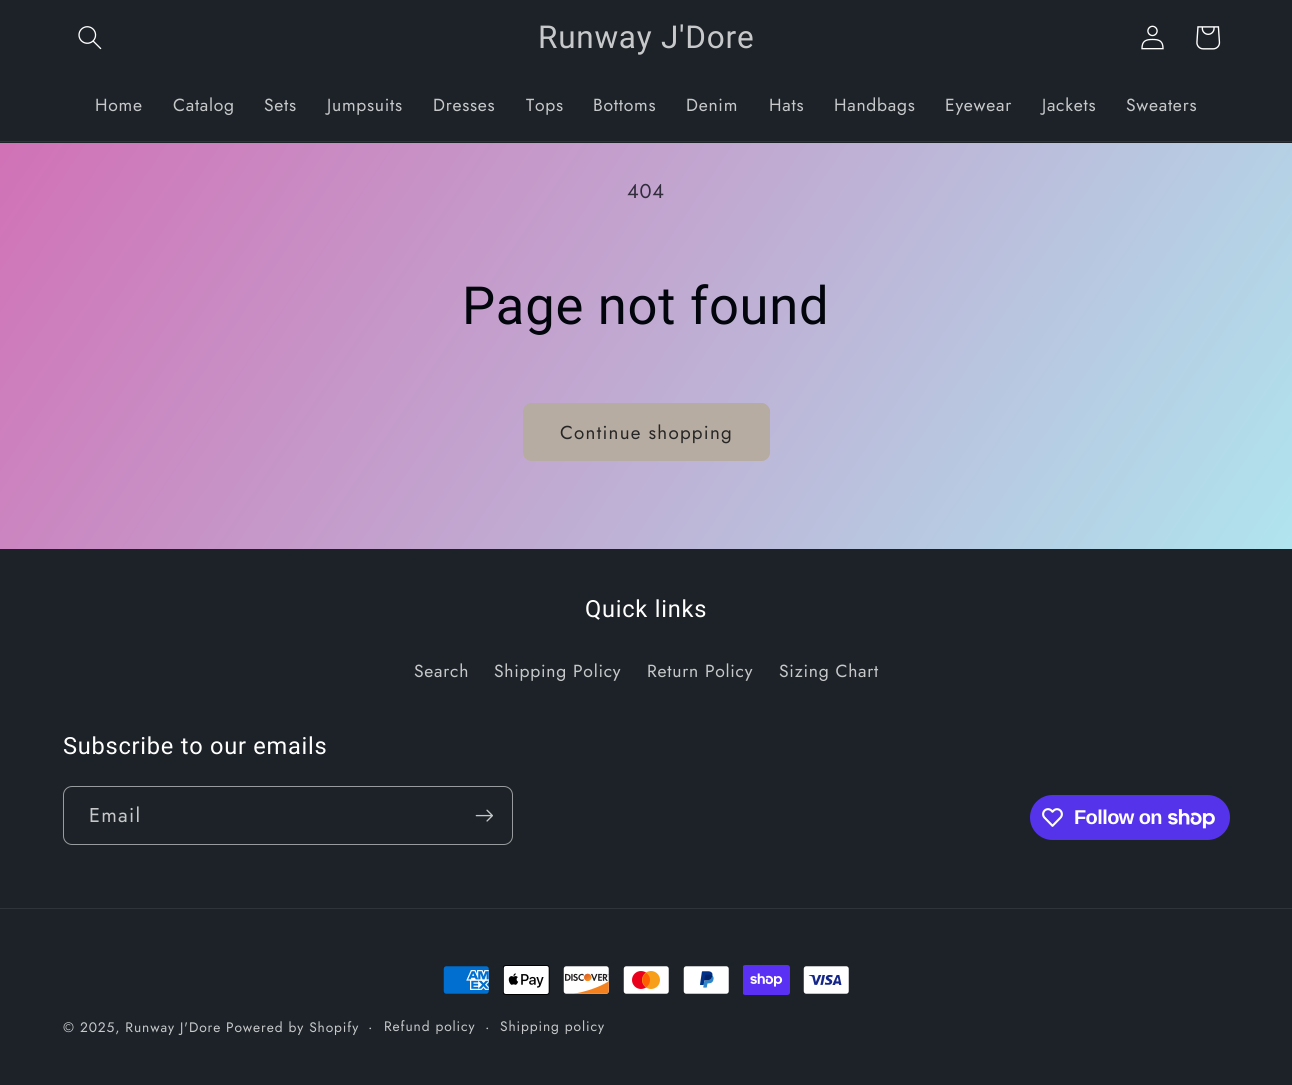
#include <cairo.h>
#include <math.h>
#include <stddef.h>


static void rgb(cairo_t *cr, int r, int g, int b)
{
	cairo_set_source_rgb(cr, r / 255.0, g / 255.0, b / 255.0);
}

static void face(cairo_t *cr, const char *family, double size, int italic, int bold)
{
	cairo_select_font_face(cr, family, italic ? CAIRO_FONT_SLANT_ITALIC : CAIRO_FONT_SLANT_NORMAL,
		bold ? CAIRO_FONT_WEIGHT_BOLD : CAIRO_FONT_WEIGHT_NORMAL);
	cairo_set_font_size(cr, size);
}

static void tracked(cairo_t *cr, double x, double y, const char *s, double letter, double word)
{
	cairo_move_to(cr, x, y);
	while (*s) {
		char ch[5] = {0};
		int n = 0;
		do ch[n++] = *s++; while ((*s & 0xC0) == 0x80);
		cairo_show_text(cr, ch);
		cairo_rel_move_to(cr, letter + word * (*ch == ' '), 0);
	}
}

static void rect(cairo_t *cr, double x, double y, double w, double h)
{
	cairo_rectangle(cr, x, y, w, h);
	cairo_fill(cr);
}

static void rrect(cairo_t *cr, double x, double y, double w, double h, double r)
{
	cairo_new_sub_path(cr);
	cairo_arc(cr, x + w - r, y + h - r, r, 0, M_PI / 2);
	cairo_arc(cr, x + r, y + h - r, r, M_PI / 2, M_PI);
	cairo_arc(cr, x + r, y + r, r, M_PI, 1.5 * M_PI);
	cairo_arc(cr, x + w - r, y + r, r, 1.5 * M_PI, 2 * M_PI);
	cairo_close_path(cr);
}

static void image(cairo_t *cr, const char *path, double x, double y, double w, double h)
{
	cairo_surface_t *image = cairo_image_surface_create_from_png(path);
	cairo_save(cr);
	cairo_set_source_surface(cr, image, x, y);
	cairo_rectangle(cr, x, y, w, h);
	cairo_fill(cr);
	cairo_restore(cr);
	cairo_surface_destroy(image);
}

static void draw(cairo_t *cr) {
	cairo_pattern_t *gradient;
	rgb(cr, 255, 255, 255);
	cairo_paint(cr);
	gradient = cairo_pattern_create_linear(-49, 73, 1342, 1012);
	cairo_pattern_add_color_stop_rgba(gradient, 0, 0.827, 0.416, 0.702, 1);
	cairo_pattern_add_color_stop_rgba(gradient, 1, 0.659, 1, 0.984, 1);
	cairo_set_source(cr, gradient);
	cairo_pattern_destroy(gradient);
	rect(cr, 0, 143, 1292, 406);
	rgb(cr, 28, 34, 40);
	rect(cr, 0, 0, 1292, 143);
	rgb(cr, 46, 52, 57);
	rect(cr, 0, 141, 1292, 1);
	image(cr, "image0.png", 78, 26, 24, 24);
	face(cr, "Roboto", 31.5, 0, 0);
	rgb(cr, 198, 200, 201);
	tracked(cr, 538, 48, "Runway J'Dore", 0.75, 0);
	image(cr, "image1.png", 1141, 25, 23, 25);
	image(cr, "image2.png", 1196, 26, 25, 24);
	face(cr, "Jost", 17.5, 0, 0);
	tracked(cr, 95, 111, "Home", 0.75, 0);
	tracked(cr, 173, 111, "Catalog", 0.75, 0);
	tracked(cr, 264, 111, "Sets", 0.75, 0);
	tracked(cr, 327, 111, "Jumpsuits", 0.75, 0);
	tracked(cr, 433, 111, "Dresses", 0.75, 0);
	tracked(cr, 526, 111, "Tops", 0.75, 0);
	tracked(cr, 593, 111, "Bottoms", 0.75, 0);
	tracked(cr, 686, 111, "Denim", 0.75, 0);
	tracked(cr, 769, 111, "Hats", 0.75, 0);
	tracked(cr, 834, 111, "Handbags", 0.75, 0);
	tracked(cr, 945, 111, "Eyewear", 0.75, 0);
	tracked(cr, 1042, 111, "Jackets", 0.75, 0);
	tracked(cr, 1126, 111, "Sweaters", 0.75, 0);
	face(cr, "Jost", 20, 0, 0);
	rgb(cr, 50, 45, 61);
	tracked(cr, 627, 198, "404", 0.75, 0);
	face(cr, "Roboto", 52.5, 0, 0);
	rgb(cr, 2, 6, 12);
	tracked(cr, 462, 324, "Page not found", 0.75, 0);
	rgb(cr, 183, 172, 162);
	rrect(cr, 523, 403, 247, 58, 9);
	cairo_fill(cr);
	rrect(cr, 523.5, 403.5, 246, 57, 8.5);
	cairo_set_line_width(cr, 1);
	cairo_stroke(cr);
	face(cr, "Jost", 18.75, 0, 0);
	rgb(cr, 38, 38, 38);
	tracked(cr, 560, 439, "Continue shopping", 1.25, 0);
	rgb(cr, 28, 34, 40);
	rect(cr, 0, 549, 1292, 536);
	face(cr, "Roboto", 23.6, 0, 0);
	rgb(cr, 255, 255, 255);
	tracked(cr, 585, 617, "Quick links", 0.75, 0);
	face(cr, "Jost", 17.5, 0, 0);
	rgb(cr, 198, 200, 201);
	tracked(cr, 414, 677, "Search", 0.75, 0);
	tracked(cr, 494, 677, "Shipping Policy", 0.75, 0);
	tracked(cr, 647, 677, "Return Policy", 0.75, 0);
	tracked(cr, 779, 677, "Sizing Chart", 0.75, 0);
	face(cr, "Roboto", 23.6, 0, 0);
	rgb(cr, 255, 255, 255);
	tracked(cr, 63, 754, "Subscribe to our emails", 0.75, 0);
	rrect(cr, 63.5, 786.5, 449, 58, 8.5);
	rgb(cr, 153, 156, 158);
	cairo_stroke(cr);
	face(cr, "Jost", 20, 0, 0);
	rgb(cr, 198, 200, 201);
	tracked(cr, 89, 822, "Email", 1.25, 0);
	image(cr, "image3.png", 475, 809, 18, 13);
	rgb(cr, 84, 51, 235);
	rrect(cr, 1030, 795, 200, 45, 22.5);
	cairo_fill(cr);
	image(cr, "image4.png", 1042, 808, 21, 19);
	face(cr, "Liberation Sans", 20, 0, 1);
	rgb(cr, 255, 255, 255);
	tracked(cr, 1074, 824, "Follow on", -0.6, 0);
	image(cr, "image5.png", 1168, 809, 47, 20);
	rgb(cr, 46, 52, 57);
	rect(cr, 0, 908, 1292, 1);
	image(cr, "image6.png", 443, 966, 46, 28);
	image(cr, "image7.png", 503, 965, 47, 30);
	image(cr, "image8.png", 563, 966, 46, 28);
	image(cr, "image9.png", 623, 966, 46, 28);
	image(cr, "image10.png", 683, 966, 46, 28);
	image(cr, "image11.png", 743, 965, 47, 30);
	image(cr, "image12.png", 803, 966, 46, 28);
	face(cr, "Jost", 13.75, 0, 0);
	rgb(cr, 198, 200, 201);
	tracked(cr, 63, 1032, "© 2025, Runway J'Dore", 0.9, 0);
	tracked(cr, 226, 1032, "Powered by Shopify", 0.9, 0);
	face(cr, "Jost", 15, 0, 0);
	tracked(cr, 368, 1032, "·", 0.9, 0);
	face(cr, "Jost", 13.75, 0, 0);
	tracked(cr, 384, 1031, "Refund policy", 0.9, 0);
	face(cr, "Jost", 15, 0, 0);
	tracked(cr, 485, 1032, "·", 0.9, 0);
	face(cr, "Jost", 13.75, 0, 0);
	tracked(cr, 500, 1031, "Shipping policy", 0.9, 0);
}

int main(void) {
	cairo_surface_t *surface = cairo_image_surface_create(CAIRO_FORMAT_RGB24, 1292, 1085);
	cairo_t *cr = cairo_create(surface);
	cairo_font_options_t *options = cairo_font_options_create();
	cairo_font_options_set_hint_metrics(options, CAIRO_HINT_METRICS_OFF);
	cairo_font_options_set_hint_style(options, CAIRO_HINT_STYLE_NONE);
	cairo_set_font_options(cr, options);
	cairo_set_miter_limit(cr, 4);
	draw(cr);
	cairo_surface_write_to_png(surface, "render.png");
	cairo_font_options_destroy(options);
	cairo_destroy(cr);
	cairo_surface_destroy(surface);
	return 0;
}
